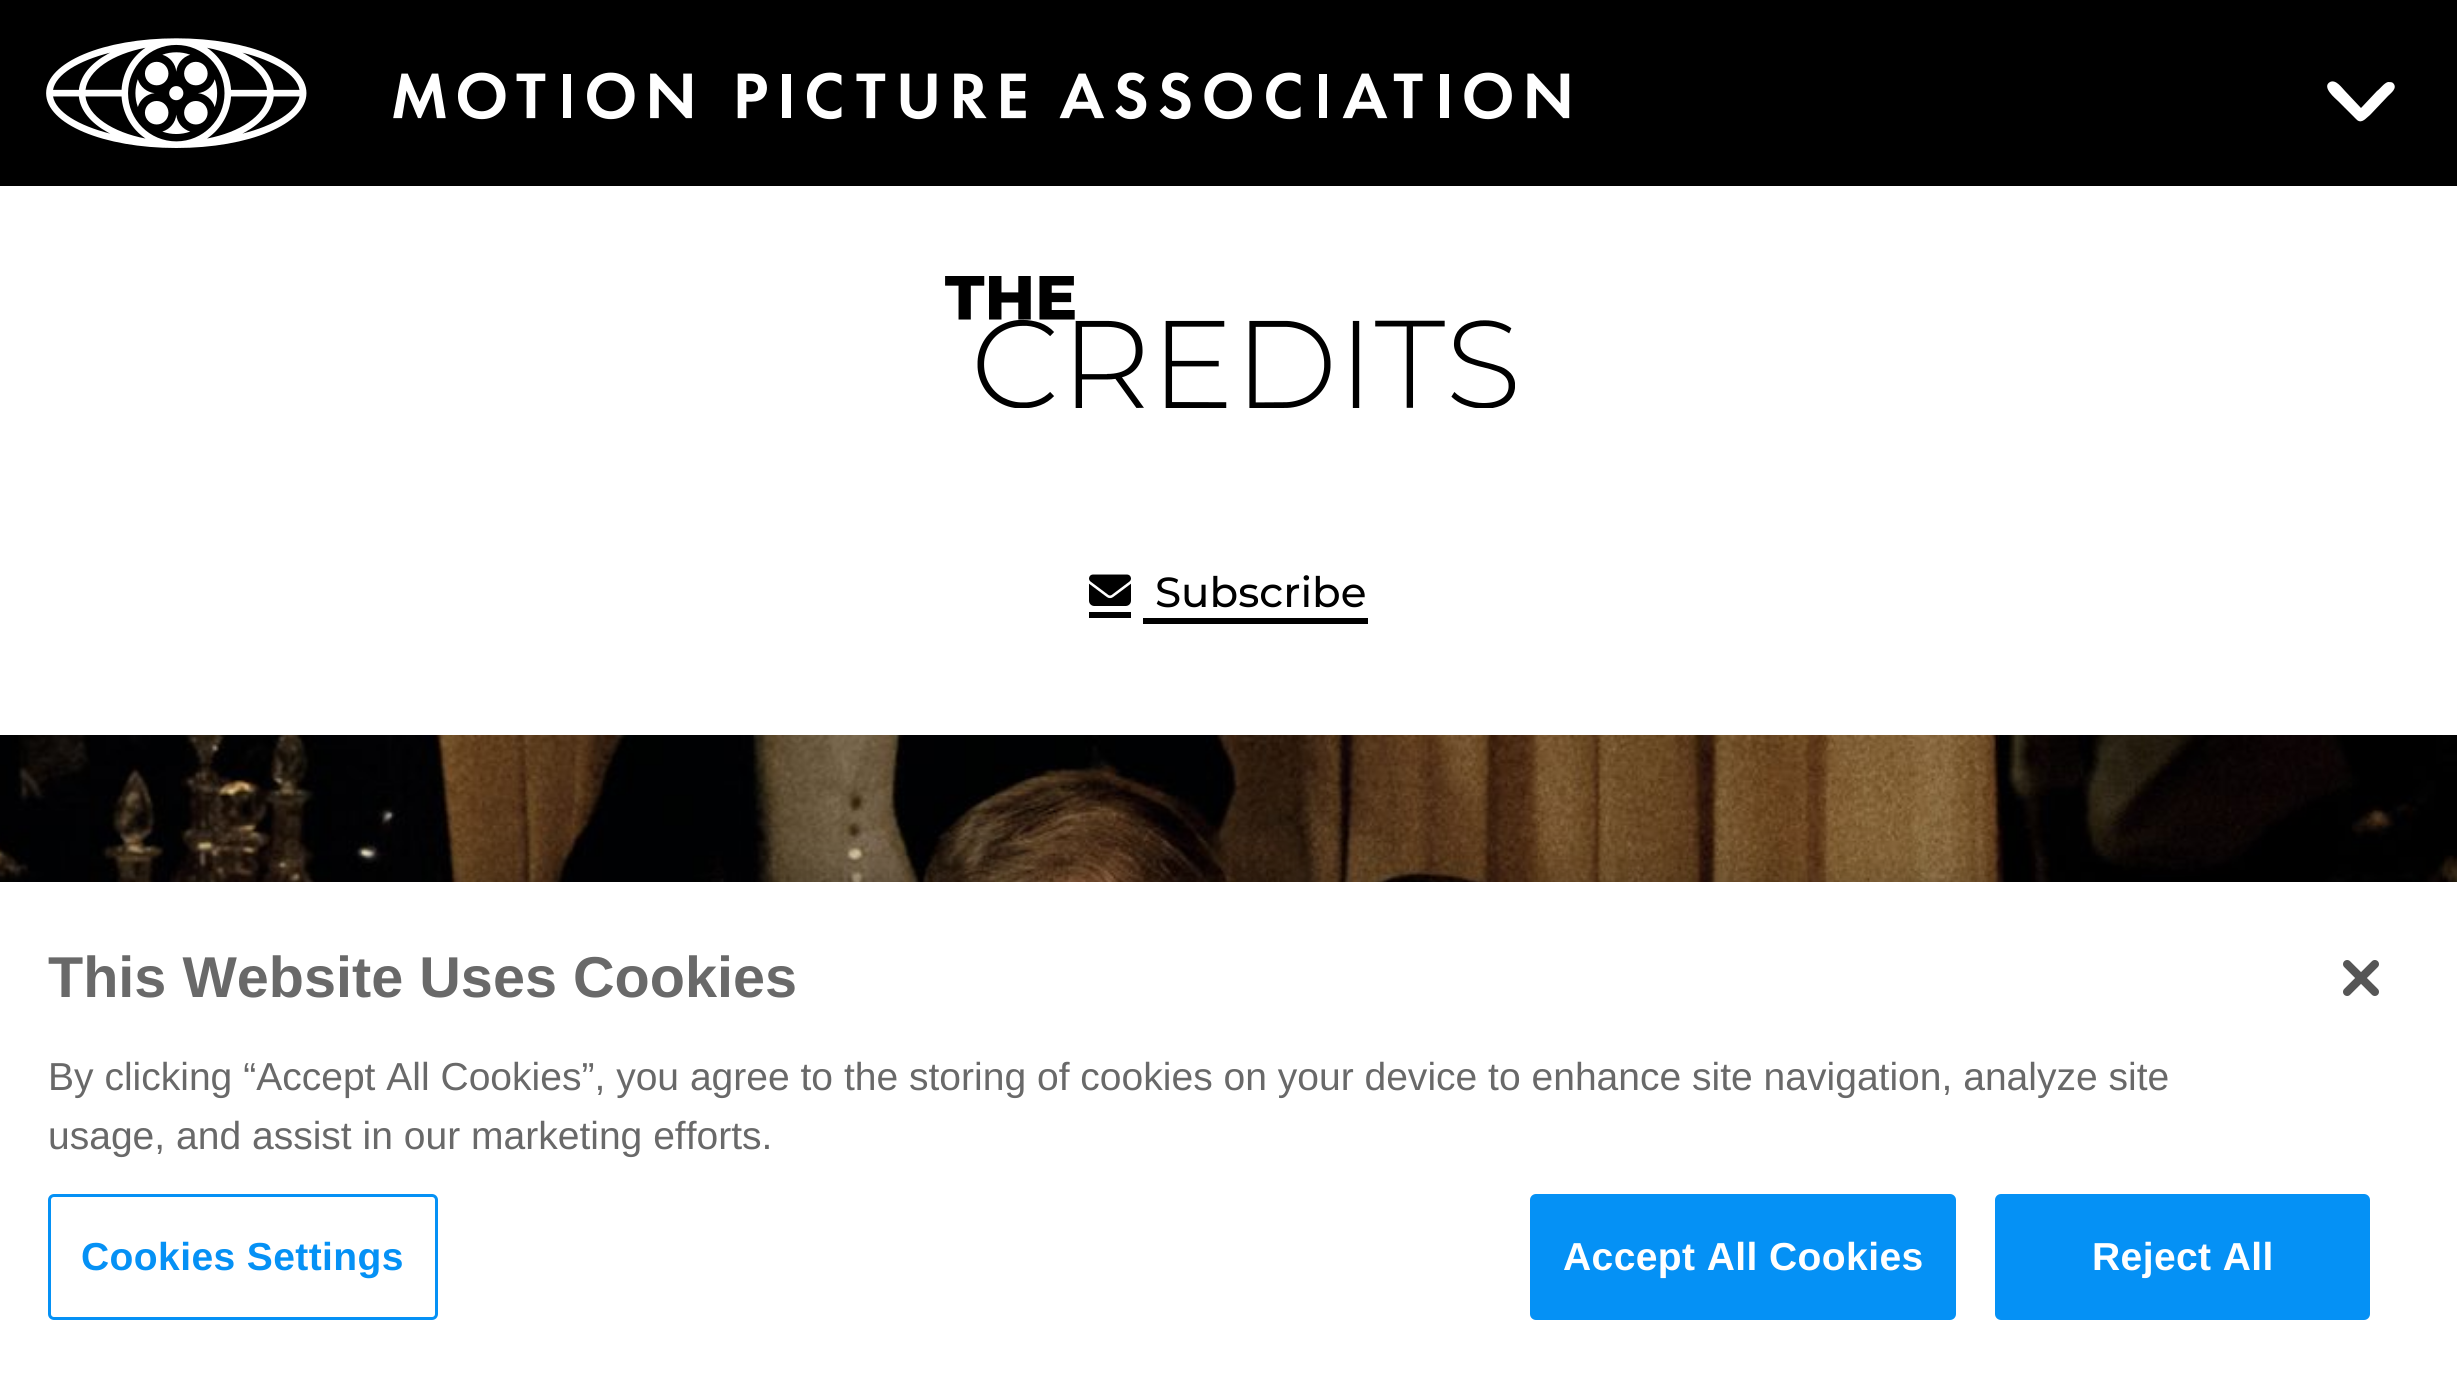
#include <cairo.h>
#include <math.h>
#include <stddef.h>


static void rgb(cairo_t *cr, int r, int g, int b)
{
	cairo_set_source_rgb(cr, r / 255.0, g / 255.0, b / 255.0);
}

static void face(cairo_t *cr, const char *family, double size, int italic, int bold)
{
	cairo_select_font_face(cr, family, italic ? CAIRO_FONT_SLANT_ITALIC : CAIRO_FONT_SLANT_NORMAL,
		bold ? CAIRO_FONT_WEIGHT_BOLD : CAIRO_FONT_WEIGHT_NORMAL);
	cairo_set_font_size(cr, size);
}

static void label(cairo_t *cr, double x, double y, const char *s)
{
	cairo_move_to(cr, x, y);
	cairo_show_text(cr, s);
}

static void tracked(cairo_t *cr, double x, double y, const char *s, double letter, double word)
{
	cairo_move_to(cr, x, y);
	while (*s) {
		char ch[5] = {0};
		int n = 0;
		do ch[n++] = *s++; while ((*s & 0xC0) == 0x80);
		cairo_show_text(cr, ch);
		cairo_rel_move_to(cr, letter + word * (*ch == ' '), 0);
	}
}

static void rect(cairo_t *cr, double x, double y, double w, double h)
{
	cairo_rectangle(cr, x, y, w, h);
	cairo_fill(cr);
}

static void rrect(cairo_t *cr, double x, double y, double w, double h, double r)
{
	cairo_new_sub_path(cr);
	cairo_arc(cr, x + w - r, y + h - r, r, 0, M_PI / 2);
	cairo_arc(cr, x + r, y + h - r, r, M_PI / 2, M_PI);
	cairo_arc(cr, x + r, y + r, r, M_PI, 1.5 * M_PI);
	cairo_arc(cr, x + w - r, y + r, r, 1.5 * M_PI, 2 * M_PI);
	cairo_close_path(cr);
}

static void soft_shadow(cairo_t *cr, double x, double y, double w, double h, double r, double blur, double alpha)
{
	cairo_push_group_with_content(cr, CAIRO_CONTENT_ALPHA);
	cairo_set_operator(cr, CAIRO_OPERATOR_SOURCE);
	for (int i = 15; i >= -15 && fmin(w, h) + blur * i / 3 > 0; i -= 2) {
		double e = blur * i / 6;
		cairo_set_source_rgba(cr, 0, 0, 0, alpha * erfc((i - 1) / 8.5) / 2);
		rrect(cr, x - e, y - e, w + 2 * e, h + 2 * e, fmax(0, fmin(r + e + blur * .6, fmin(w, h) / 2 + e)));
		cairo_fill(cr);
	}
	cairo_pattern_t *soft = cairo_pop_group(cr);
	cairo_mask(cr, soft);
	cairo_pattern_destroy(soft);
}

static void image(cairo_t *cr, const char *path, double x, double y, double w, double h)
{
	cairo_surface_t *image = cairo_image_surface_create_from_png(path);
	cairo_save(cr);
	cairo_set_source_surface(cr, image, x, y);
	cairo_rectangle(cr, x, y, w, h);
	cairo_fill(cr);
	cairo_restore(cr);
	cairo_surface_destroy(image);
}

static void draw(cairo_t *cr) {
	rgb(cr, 255, 255, 255);
	cairo_paint(cr);
	rgb(cr, 0, 0, 0);
	rect(cr, 0, 0, 2457, 186);
	image(cr, "image0.png", 46, 38, 1524, 110);
	rgb(cr, 255, 255, 255);
	cairo_new_path(cr);
	cairo_move_to(cr, 2357, 120);
	cairo_curve_to(cr, 2362, 124, 2366, 118, 2370, 115);
	cairo_line_to(cr, 2388, 96);
	cairo_curve_to(cr, 2391, 93, 2398, 88, 2393, 83);
	cairo_curve_to(cr, 2392, 82, 2390, 82, 2388, 82);
	cairo_curve_to(cr, 2384, 83, 2380, 89, 2377, 91);
	cairo_line_to(cr, 2361, 108);
	cairo_line_to(cr, 2345, 91);
	cairo_curve_to(cr, 2342, 88, 2336, 79, 2330, 82);
	cairo_curve_to(cr, 2321, 87, 2336, 99, 2338, 101);
	cairo_close_path(cr);
	cairo_fill(cr);
	image(cr, "image1.png", 945, 276, 570, 132);
	rgb(cr, 0, 0, 0);
	rect(cr, 1089, 612, 42, 6);
	rect(cr, 1143, 618, 225, 6);
	image(cr, "image2.png", 1089, 574, 42, 32);
	face(cr, "Montserrat Medium", 42, 0, 0);
	label(cr, 1155, 607, "Subscribe");
	image(cr, "image3.png", 0, 735, 2457, 147);
	rgb(cr, 0, 0, 0);
	soft_shadow(cr, 0, 882, 2457, 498, 0, 27, 0.2);
	rgb(cr, 255, 255, 255);
	rect(cr, 0, 882, 2457, 496);
	face(cr, "Liberation Sans", 57.6, 0, 1);
	rgb(cr, 105, 105, 105);
	label(cr, 48, 997, "This Website Uses Cookies");
	face(cr, "Liberation Sans", 39.02, 0, 0);
	label(cr, 48, 1090, "By clicking “Accept All Cookies”, you agree to the storing of cookies on your device to enhance site navigation, analyze site");
	label(cr, 48, 1149, "usage, and assist in our marketing efforts.");
	rrect(cr, 49.5, 1195.5, 387, 123, 4.5);
	rgb(cr, 5, 145, 245);
	cairo_set_line_width(cr, 3);
	cairo_stroke(cr);
	face(cr, "Liberation Sans", 39.02, 0, 1);
	tracked(cr, 81, 1270, "Cookies Settings", 0.4, 0);
	rrect(cr, 1531.5, 1195.5, 423, 123, 4.5);
	cairo_fill_preserve(cr);
	cairo_stroke(cr);
	rgb(cr, 255, 255, 255);
	tracked(cr, 1563, 1270, "Accept All Cookies", 0.4, 0);
	rgb(cr, 5, 145, 245);
	rrect(cr, 1996.5, 1195.5, 372, 123, 4.5);
	cairo_fill_preserve(cr);
	cairo_stroke(cr);
	rgb(cr, 255, 255, 255);
	tracked(cr, 2092, 1270, "Reject All", 0.4, 0);
	image(cr, "image4.png", 2343, 960, 36, 36);
}

int main(void) {
	cairo_surface_t *surface = cairo_image_surface_create(CAIRO_FORMAT_RGB24, 2457, 1378);
	cairo_t *cr = cairo_create(surface);
	cairo_font_options_t *options = cairo_font_options_create();
	cairo_font_options_set_hint_metrics(options, CAIRO_HINT_METRICS_OFF);
	cairo_font_options_set_hint_style(options, CAIRO_HINT_STYLE_NONE);
	cairo_set_font_options(cr, options);
	cairo_set_miter_limit(cr, 4);
	draw(cr);
	cairo_surface_write_to_png(surface, "render.png");
	cairo_font_options_destroy(options);
	cairo_destroy(cr);
	cairo_surface_destroy(surface);
	return 0;
}
